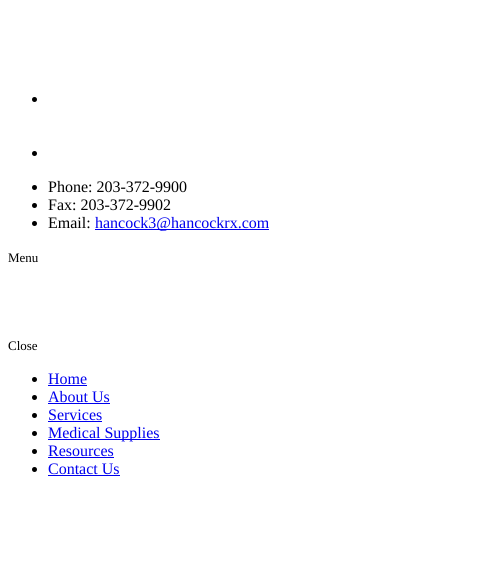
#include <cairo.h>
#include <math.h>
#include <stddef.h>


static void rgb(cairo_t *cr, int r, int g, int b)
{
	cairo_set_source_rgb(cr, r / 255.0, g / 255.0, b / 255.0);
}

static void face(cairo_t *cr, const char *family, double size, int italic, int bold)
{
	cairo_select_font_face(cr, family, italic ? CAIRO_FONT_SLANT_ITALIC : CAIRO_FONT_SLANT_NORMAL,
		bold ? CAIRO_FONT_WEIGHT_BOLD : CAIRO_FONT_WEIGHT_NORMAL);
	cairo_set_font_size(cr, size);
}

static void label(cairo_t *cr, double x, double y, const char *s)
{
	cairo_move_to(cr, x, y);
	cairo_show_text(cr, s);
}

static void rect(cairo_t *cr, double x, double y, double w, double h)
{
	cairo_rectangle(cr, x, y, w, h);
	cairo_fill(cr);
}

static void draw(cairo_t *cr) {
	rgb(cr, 255, 255, 255);
	cairo_paint(cr);
	rgb(cr, 0, 0, 0);
	cairo_arc(cr, 34.5, 99.5, 2.5, 0, 2 * M_PI);
	cairo_fill(cr);
	cairo_arc(cr, 34.5, 153.5, 2.5, 0, 2 * M_PI);
	cairo_fill(cr);
	cairo_arc(cr, 34.5, 187.5, 2.5, 0, 2 * M_PI);
	cairo_fill(cr);
	face(cr, "Liberation Serif", 16, 0, 0);
	label(cr, 48, 192, "Phone: 203-372-9900");
	cairo_new_path(cr);
	cairo_arc(cr, 34.5, 205.5, 2.5, 0, 2 * M_PI);
	cairo_fill(cr);
	label(cr, 48, 210, "Fax: 203-372-9902");
	cairo_new_path(cr);
	cairo_arc(cr, 34.5, 223.5, 2.5, 0, 2 * M_PI);
	cairo_fill(cr);
	label(cr, 48, 228, "Email:");
	rgb(cr, 0, 0, 238);
	rect(cr, 95, 229, 174, 1);
	label(cr, 95, 228, "hancock3@hancockrx.com");
	face(cr, "Liberation Serif", 13, 0, 0);
	rgb(cr, 0, 0, 0);
	label(cr, 8, 262, "Menu");
	label(cr, 8, 350, "Close");
	cairo_new_path(cr);
	cairo_arc(cr, 34.5, 379.5, 2.5, 0, 2 * M_PI);
	cairo_fill(cr);
	face(cr, "Liberation Serif", 16, 0, 0);
	rgb(cr, 0, 0, 238);
	label(cr, 48, 384, "Home");
	rect(cr, 48, 385, 39, 1);
	rgb(cr, 0, 0, 0);
	cairo_new_path(cr);
	cairo_arc(cr, 34.5, 397.5, 2.5, 0, 2 * M_PI);
	cairo_fill(cr);
	rgb(cr, 0, 0, 238);
	label(cr, 48, 402, "About Us");
	rect(cr, 48, 403, 62, 1);
	rgb(cr, 0, 0, 0);
	cairo_new_path(cr);
	cairo_arc(cr, 34.5, 415.5, 2.5, 0, 2 * M_PI);
	cairo_fill(cr);
	rgb(cr, 0, 0, 238);
	label(cr, 48, 420, "Services");
	rect(cr, 48, 421, 54, 1);
	rgb(cr, 0, 0, 0);
	cairo_new_path(cr);
	cairo_arc(cr, 34.5, 433.5, 2.5, 0, 2 * M_PI);
	cairo_fill(cr);
	rgb(cr, 0, 0, 238);
	rect(cr, 48, 439, 112, 1);
	label(cr, 48, 438, "Medical Supplies");
	rgb(cr, 0, 0, 0);
	cairo_new_path(cr);
	cairo_arc(cr, 34.5, 451.5, 2.5, 0, 2 * M_PI);
	cairo_fill(cr);
	rgb(cr, 0, 0, 238);
	label(cr, 48, 456, "Resources");
	rect(cr, 48, 457, 66, 1);
	rgb(cr, 0, 0, 0);
	cairo_new_path(cr);
	cairo_arc(cr, 34.5, 469.5, 2.5, 0, 2 * M_PI);
	cairo_fill(cr);
	rgb(cr, 0, 0, 238);
	label(cr, 48, 474, "Contact Us");
	rect(cr, 48, 475, 72, 1);
}

int main(void) {
	cairo_surface_t *surface = cairo_image_surface_create(CAIRO_FORMAT_RGB24, 483, 565);
	cairo_t *cr = cairo_create(surface);
	cairo_font_options_t *options = cairo_font_options_create();
	cairo_font_options_set_hint_metrics(options, CAIRO_HINT_METRICS_OFF);
	cairo_font_options_set_hint_style(options, CAIRO_HINT_STYLE_NONE);
	cairo_set_font_options(cr, options);
	cairo_set_miter_limit(cr, 4);
	draw(cr);
	cairo_surface_write_to_png(surface, "render.png");
	cairo_font_options_destroy(options);
	cairo_destroy(cr);
	cairo_surface_destroy(surface);
	return 0;
}
